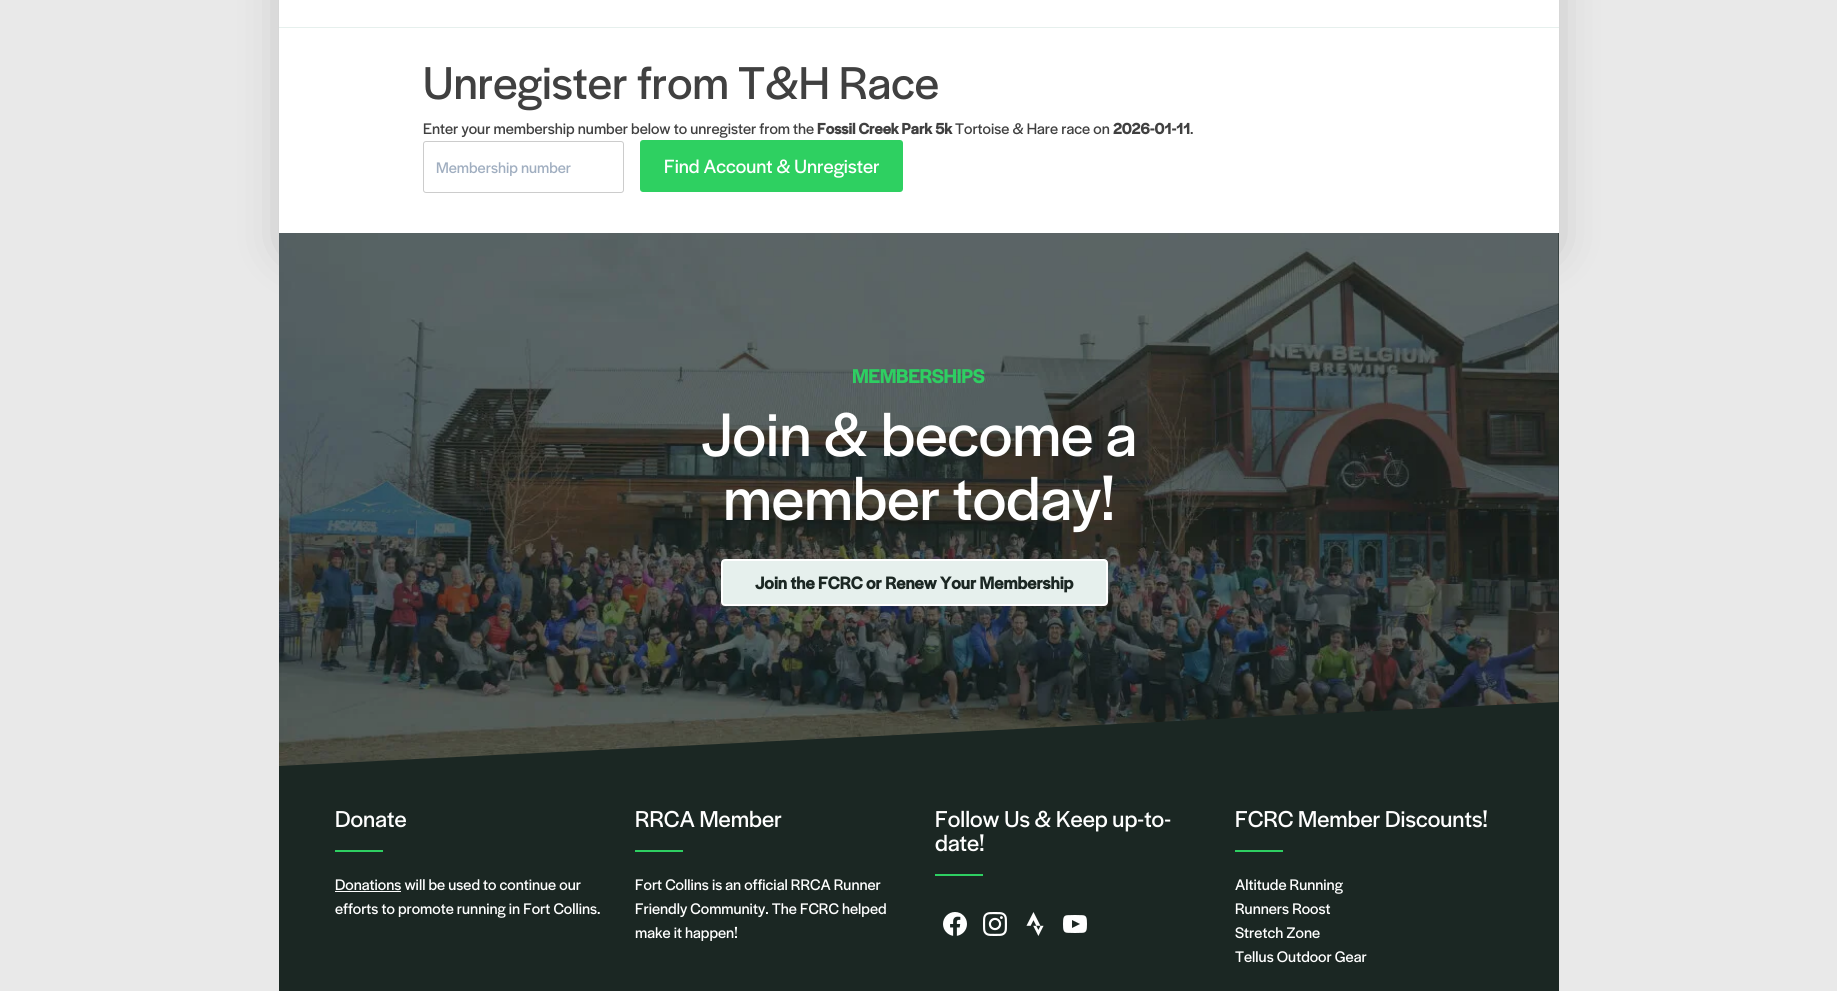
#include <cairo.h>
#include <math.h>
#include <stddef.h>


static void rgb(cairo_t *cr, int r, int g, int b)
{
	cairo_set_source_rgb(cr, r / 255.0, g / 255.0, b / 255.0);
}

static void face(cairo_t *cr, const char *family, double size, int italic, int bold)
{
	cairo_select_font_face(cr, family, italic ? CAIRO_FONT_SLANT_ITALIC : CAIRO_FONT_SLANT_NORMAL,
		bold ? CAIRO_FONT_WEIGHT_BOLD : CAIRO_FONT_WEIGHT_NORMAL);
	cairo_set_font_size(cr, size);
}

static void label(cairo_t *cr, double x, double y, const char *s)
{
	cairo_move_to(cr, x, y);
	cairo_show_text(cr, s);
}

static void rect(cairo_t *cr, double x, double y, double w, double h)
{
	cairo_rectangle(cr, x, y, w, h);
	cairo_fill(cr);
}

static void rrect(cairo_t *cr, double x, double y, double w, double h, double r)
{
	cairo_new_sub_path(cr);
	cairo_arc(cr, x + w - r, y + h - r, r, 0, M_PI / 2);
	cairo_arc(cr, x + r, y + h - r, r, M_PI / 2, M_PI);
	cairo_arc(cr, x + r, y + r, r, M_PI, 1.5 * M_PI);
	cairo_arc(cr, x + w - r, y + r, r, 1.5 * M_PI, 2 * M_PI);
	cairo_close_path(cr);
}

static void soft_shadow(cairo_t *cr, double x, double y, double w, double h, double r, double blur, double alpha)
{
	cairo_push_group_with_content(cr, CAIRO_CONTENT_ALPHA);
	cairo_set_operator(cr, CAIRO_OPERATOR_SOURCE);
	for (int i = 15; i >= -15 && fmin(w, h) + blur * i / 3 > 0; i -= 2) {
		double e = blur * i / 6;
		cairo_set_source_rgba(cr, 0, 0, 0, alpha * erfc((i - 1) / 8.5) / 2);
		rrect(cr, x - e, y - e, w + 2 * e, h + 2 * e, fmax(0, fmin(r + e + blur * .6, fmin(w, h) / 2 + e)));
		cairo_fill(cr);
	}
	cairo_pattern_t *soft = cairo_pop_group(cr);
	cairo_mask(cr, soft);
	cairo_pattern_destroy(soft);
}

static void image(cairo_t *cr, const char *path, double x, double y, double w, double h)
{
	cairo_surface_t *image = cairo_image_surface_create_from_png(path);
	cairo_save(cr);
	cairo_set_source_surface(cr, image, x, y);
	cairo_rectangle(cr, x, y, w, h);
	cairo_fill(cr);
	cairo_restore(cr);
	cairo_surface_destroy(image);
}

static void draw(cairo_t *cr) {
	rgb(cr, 233, 233, 233);
	cairo_paint(cr);
	rgb(cr, 0, 0, 0);
	soft_shadow(cr, 291, -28, 1256, 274, 0, 25, 0.25);
	rgb(cr, 255, 255, 255);
	rect(cr, 279, 0, 1280, 233);
	rgb(cr, 230, 240, 237);
	rect(cr, 279, 27, 1280, 1);
	face(cr, "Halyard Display", 48, 0, 0);
	rgb(cr, 64, 64, 64);
	label(cr, 423, 99, "Unregister from T&H Race");
	face(cr, "Halyard Display", 16, 0, 0);
	label(cr, 423, 134, "Enter your membership number below to unregister from the");
	face(cr, "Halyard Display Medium", 16, 0, 1);
	label(cr, 817, 134, "Fossil Creek Park 5k");
	face(cr, "Halyard Display", 16, 0, 0);
	label(cr, 955, 134, "Tortoise & Hare race on");
	face(cr, "Halyard Display Medium", 16, 0, 1);
	label(cr, 1113, 134, "2026-01-11");
	face(cr, "Halyard Display", 16, 0, 0);
	label(cr, 1190, 134, ".");
	rrect(cr, 423.5, 141.5, 200, 51, 2.5);
	rgb(cr, 204, 204, 204);
	cairo_set_line_width(cr, 1);
	cairo_stroke(cr);
	rgb(cr, 160, 174, 192);
	label(cr, 436, 173, "Membership number");
	rgb(cr, 46, 208, 97);
	rrect(cr, 640, 140, 263, 52, 3);
	cairo_fill(cr);
	face(cr, "Halyard Display", 20, 0, 0);
	rgb(cr, 255, 255, 255);
	label(cr, 664, 173, "Find Account & Unregister");
	rgb(cr, 27, 39, 35);
	rect(cr, 279, 233, 1280, 758);
	image(cr, "image0.png", 279, 233, 1280, 533);
	face(cr, "Halyard Display Medium", 20, 0, 1);
	rgb(cr, 46, 207, 98);
	label(cr, 852, 383, "MEMBERSHIPS");
	face(cr, "Halyard Display", 64, 0, 0);
	rgb(cr, 255, 255, 255);
	label(cr, 701, 456, "Join & become a");
	label(cr, 723, 520, "member today!");
	rgb(cr, 230, 240, 237);
	rrect(cr, 722, 560, 385, 45, 3);
	cairo_fill_preserve(cr);
	rgb(cr, 255, 255, 255);
	cairo_set_line_width(cr, 2);
	cairo_stroke(cr);
	face(cr, "Halyard Display Medium", 18, 0, 1);
	rgb(cr, 27, 39, 35);
	label(cr, 755, 589, "Join the FCRC or Renew Your Membership");
	face(cr, "Halyard Display", 24, 0, 0);
	rgb(cr, 255, 255, 255);
	label(cr, 335, 827, "Donate");
	rgb(cr, 46, 207, 98);
	rect(cr, 335, 850, 48, 2);
	face(cr, "Halyard Display", 16, 0, 0);
	rgb(cr, 255, 255, 255);
	label(cr, 335, 890, "Donations will be used to continue our");
	rect(cr, 335, 891, 66, 1);
	label(cr, 335, 914, "efforts to promote running in Fort Collins.");
	face(cr, "Halyard Display", 24, 0, 0);
	label(cr, 635, 827, "RRCA Member");
	rgb(cr, 46, 207, 98);
	rect(cr, 635, 850, 48, 2);
	face(cr, "Halyard Display", 16, 0, 0);
	rgb(cr, 255, 255, 255);
	label(cr, 635, 890, "Fort Collins is an official RRCA Runner");
	label(cr, 635, 914, "Friendly Community. The FCRC helped");
	label(cr, 635, 938, "make it happen!");
	face(cr, "Halyard Display", 24, 0, 0);
	label(cr, 935, 827, "Follow Us & Keep up-to-");
	label(cr, 935, 851, "date!");
	rgb(cr, 46, 207, 98);
	rect(cr, 935, 874, 48, 2);
	image(cr, "image1.png", 943, 912, 24, 24);
	image(cr, "image2.png", 983, 912, 24, 24);
	image(cr, "image3.png", 1026, 912, 18, 24);
	image(cr, "image4.png", 1063, 915, 24, 18);
	rgb(cr, 255, 255, 255);
	label(cr, 1235, 827, "FCRC Member Discounts!");
	rgb(cr, 46, 207, 98);
	rect(cr, 1235, 850, 48, 2);
	face(cr, "Halyard Display", 16, 0, 0);
	rgb(cr, 255, 255, 255);
	label(cr, 1235, 890, "Altitude Running");
	label(cr, 1235, 914, "Runners Roost");
	label(cr, 1235, 938, "Stretch Zone");
	label(cr, 1235, 962, "Tellus Outdoor Gear");
}

int main(void) {
	cairo_surface_t *surface = cairo_image_surface_create(CAIRO_FORMAT_RGB24, 1837, 991);
	cairo_t *cr = cairo_create(surface);
	cairo_font_options_t *options = cairo_font_options_create();
	cairo_font_options_set_hint_metrics(options, CAIRO_HINT_METRICS_OFF);
	cairo_font_options_set_hint_style(options, CAIRO_HINT_STYLE_NONE);
	cairo_set_font_options(cr, options);
	cairo_set_miter_limit(cr, 4);
	draw(cr);
	cairo_surface_write_to_png(surface, "render.png");
	cairo_font_options_destroy(options);
	cairo_destroy(cr);
	cairo_surface_destroy(surface);
	return 0;
}
